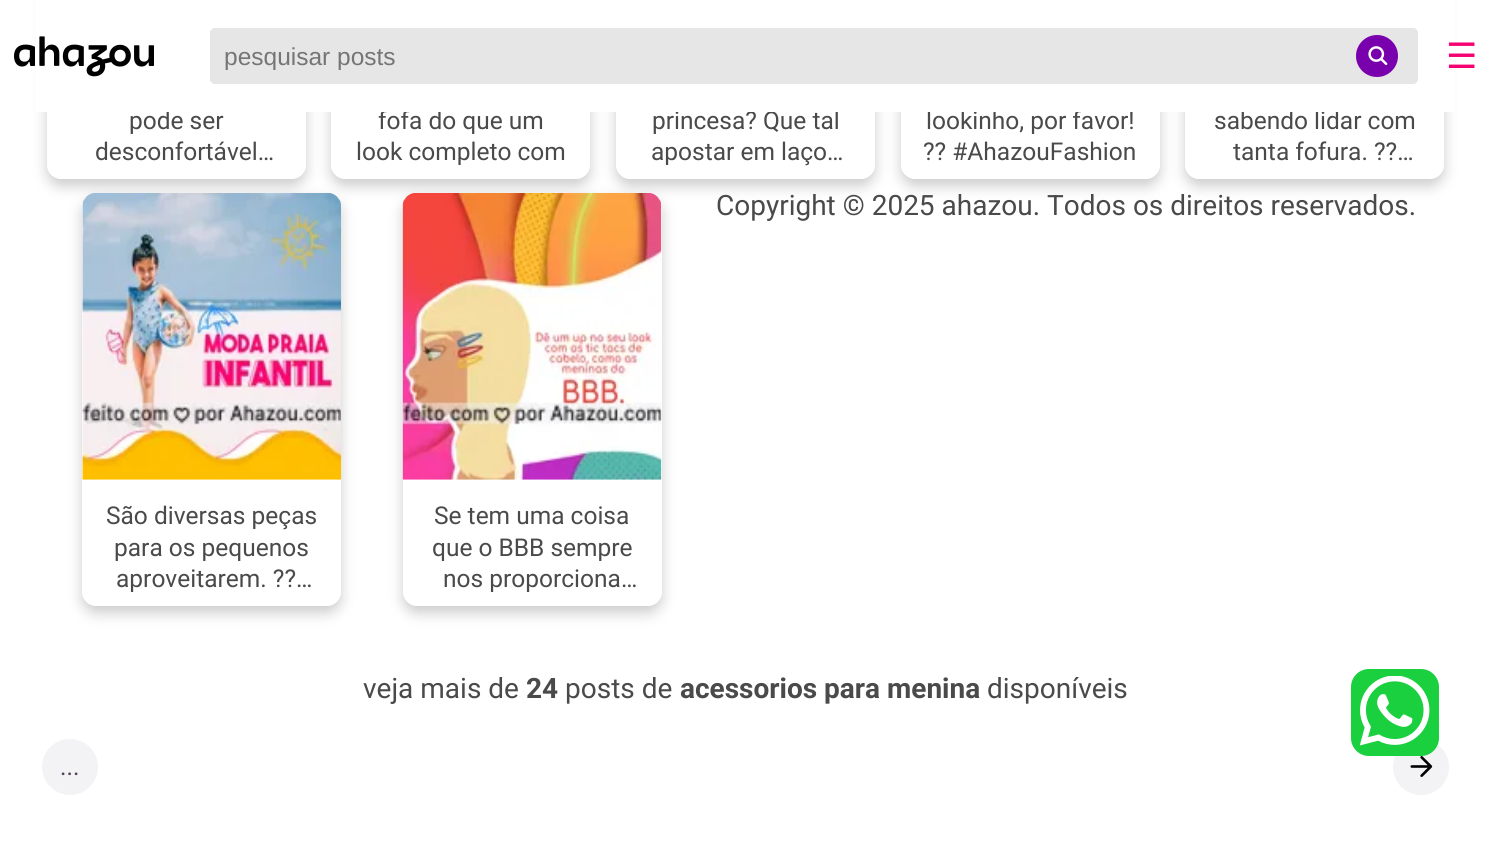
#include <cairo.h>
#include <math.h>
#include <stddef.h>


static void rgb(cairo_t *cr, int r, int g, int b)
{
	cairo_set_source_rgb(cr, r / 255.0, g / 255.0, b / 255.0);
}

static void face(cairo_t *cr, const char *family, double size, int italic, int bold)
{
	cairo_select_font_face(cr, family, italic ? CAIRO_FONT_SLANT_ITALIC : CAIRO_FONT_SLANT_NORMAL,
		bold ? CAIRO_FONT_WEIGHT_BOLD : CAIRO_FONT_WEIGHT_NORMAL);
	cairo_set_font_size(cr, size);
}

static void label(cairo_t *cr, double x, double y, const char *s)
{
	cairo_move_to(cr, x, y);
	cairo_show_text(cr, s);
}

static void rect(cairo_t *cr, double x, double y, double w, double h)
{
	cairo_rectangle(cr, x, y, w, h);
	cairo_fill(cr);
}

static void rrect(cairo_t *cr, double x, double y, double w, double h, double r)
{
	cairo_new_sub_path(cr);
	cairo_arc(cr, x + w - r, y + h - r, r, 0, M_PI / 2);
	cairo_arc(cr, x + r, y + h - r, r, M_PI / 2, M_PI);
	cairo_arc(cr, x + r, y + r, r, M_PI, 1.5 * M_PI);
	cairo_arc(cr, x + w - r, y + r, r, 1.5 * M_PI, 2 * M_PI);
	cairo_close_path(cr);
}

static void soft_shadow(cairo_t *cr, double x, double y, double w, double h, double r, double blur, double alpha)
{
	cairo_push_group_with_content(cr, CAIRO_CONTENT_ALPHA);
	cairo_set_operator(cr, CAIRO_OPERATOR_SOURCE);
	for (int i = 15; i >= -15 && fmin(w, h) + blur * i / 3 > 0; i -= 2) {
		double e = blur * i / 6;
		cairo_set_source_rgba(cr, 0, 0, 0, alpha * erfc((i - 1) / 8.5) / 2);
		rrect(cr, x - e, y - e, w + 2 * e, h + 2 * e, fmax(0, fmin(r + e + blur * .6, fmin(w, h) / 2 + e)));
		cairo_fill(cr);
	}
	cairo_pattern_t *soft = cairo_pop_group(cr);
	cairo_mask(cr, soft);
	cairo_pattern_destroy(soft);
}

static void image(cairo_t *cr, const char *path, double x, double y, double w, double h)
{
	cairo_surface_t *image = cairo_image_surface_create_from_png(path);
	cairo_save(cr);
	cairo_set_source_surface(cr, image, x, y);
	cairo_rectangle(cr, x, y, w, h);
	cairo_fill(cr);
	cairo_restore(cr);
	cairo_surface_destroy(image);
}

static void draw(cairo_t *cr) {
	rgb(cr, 255, 255, 255);
	cairo_paint(cr);
	cairo_save(cr);
	cairo_set_fill_rule(cr, CAIRO_FILL_RULE_EVEN_ODD);
	cairo_new_path(cr);
	cairo_move_to(cr, 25, 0);
	cairo_line_to(cr, 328, 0);
	cairo_line_to(cr, 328, 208);
	cairo_line_to(cr, 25, 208);
	cairo_close_path(cr);
	cairo_move_to(cr, 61, -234);
	cairo_line_to(cr, 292, -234);
	cairo_curve_to(cr, 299.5, -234, 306, -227.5, 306, -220);
	cairo_line_to(cr, 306, 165);
	cairo_curve_to(cr, 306, 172.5, 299.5, 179, 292, 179);
	cairo_line_to(cr, 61, 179);
	cairo_curve_to(cr, 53.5, 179, 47, 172.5, 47, 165);
	cairo_line_to(cr, 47, -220);
	cairo_curve_to(cr, 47, -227.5, 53.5, -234, 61, -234);
	cairo_close_path(cr);
	cairo_clip(cr);
	rgb(cr, 0, 0, 0);
	soft_shadow(cr, 47, -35, 259, 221, 14, 7, 0.2);
	cairo_restore(cr);
	face(cr, "Roboto", 24.5, 0, 0);
	rgb(cr, 74, 74, 74);
	label(cr, 129, 129, "pode ser");
	cairo_save(cr);
	cairo_set_fill_rule(cr, CAIRO_FILL_RULE_EVEN_ODD);
	cairo_new_path(cr);
	cairo_move_to(cr, 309, 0);
	cairo_line_to(cr, 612, 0);
	cairo_line_to(cr, 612, 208);
	cairo_line_to(cr, 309, 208);
	cairo_close_path(cr);
	cairo_move_to(cr, 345, -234);
	cairo_line_to(cr, 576, -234);
	cairo_curve_to(cr, 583.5, -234, 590, -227.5, 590, -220);
	cairo_line_to(cr, 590, 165);
	cairo_curve_to(cr, 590, 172.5, 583.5, 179, 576, 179);
	cairo_line_to(cr, 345, 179);
	cairo_curve_to(cr, 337.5, 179, 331, 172.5, 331, 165);
	cairo_line_to(cr, 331, -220);
	cairo_curve_to(cr, 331, -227.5, 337.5, -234, 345, -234);
	cairo_close_path(cr);
	cairo_clip(cr);
	rgb(cr, 0, 0, 0);
	soft_shadow(cr, 331, -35, 259, 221, 14, 7, 0.2);
	cairo_restore(cr);
	label(cr, 378, 129, "fofa do que um");
	cairo_save(cr);
	cairo_set_fill_rule(cr, CAIRO_FILL_RULE_EVEN_ODD);
	cairo_new_path(cr);
	cairo_move_to(cr, 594, 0);
	cairo_line_to(cr, 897, 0);
	cairo_line_to(cr, 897, 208);
	cairo_line_to(cr, 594, 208);
	cairo_close_path(cr);
	cairo_move_to(cr, 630, -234);
	cairo_line_to(cr, 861, -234);
	cairo_curve_to(cr, 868.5, -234, 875, -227.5, 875, -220);
	cairo_line_to(cr, 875, 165);
	cairo_curve_to(cr, 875, 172.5, 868.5, 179, 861, 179);
	cairo_line_to(cr, 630, 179);
	cairo_curve_to(cr, 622.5, 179, 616, 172.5, 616, 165);
	cairo_line_to(cr, 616, -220);
	cairo_curve_to(cr, 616, -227.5, 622.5, -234, 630, -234);
	cairo_close_path(cr);
	cairo_clip(cr);
	rgb(cr, 0, 0, 0);
	soft_shadow(cr, 616, -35, 259, 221, 14, 7, 0.2);
	cairo_restore(cr);
	label(cr, 652, 129, "princesa? Que tal");
	cairo_save(cr);
	cairo_set_fill_rule(cr, CAIRO_FILL_RULE_EVEN_ODD);
	cairo_new_path(cr);
	cairo_move_to(cr, 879, 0);
	cairo_line_to(cr, 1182, 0);
	cairo_line_to(cr, 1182, 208);
	cairo_line_to(cr, 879, 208);
	cairo_close_path(cr);
	cairo_move_to(cr, 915, -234);
	cairo_line_to(cr, 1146, -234);
	cairo_curve_to(cr, 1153.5, -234, 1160, -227.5, 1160, -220);
	cairo_line_to(cr, 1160, 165);
	cairo_curve_to(cr, 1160, 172.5, 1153.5, 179, 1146, 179);
	cairo_line_to(cr, 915, 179);
	cairo_curve_to(cr, 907.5, 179, 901, 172.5, 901, 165);
	cairo_line_to(cr, 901, -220);
	cairo_curve_to(cr, 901, -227.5, 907.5, -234, 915, -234);
	cairo_close_path(cr);
	cairo_clip(cr);
	rgb(cr, 0, 0, 0);
	soft_shadow(cr, 901, -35, 259, 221, 14, 7, 0.2);
	cairo_restore(cr);
	label(cr, 926, 129, "lookinho, por favor!");
	cairo_save(cr);
	cairo_set_fill_rule(cr, CAIRO_FILL_RULE_EVEN_ODD);
	cairo_new_path(cr);
	cairo_move_to(cr, 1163, 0);
	cairo_line_to(cr, 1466, 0);
	cairo_line_to(cr, 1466, 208);
	cairo_line_to(cr, 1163, 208);
	cairo_close_path(cr);
	cairo_move_to(cr, 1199, -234);
	cairo_line_to(cr, 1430, -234);
	cairo_curve_to(cr, 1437.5, -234, 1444, -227.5, 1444, -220);
	cairo_line_to(cr, 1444, 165);
	cairo_curve_to(cr, 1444, 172.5, 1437.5, 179, 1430, 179);
	cairo_line_to(cr, 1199, 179);
	cairo_curve_to(cr, 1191.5, 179, 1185, 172.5, 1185, 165);
	cairo_line_to(cr, 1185, -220);
	cairo_curve_to(cr, 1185, -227.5, 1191.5, -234, 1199, -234);
	cairo_close_path(cr);
	cairo_clip(cr);
	rgb(cr, 0, 0, 0);
	soft_shadow(cr, 1185, -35, 259, 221, 14, 7, 0.2);
	cairo_restore(cr);
	label(cr, 1214, 129, "sabendo lidar com");
	rgb(cr, 255, 255, 255);
	rect(cr, 36, 0, 1419, 112);
	image(cr, "image0.png", 14, 36, 140, 41);
	rgb(cr, 230, 230, 230);
	rrect(cr, 210, 28, 1208, 56, 5);
	cairo_fill(cr);
	cairo_save(cr);
	cairo_rectangle(cr, 224, 42, 1138, 28);
	cairo_clip(cr);
	face(cr, "Liberation Sans", 24.5, 0, 0);
	rgb(cr, 117, 117, 117);
	label(cr, 224, 65, "pesquisar posts");
	cairo_restore(cr);
	rgb(cr, 121, 0, 173);
	cairo_new_path(cr);
	cairo_arc(cr, 1377, 56, 21, 0, 2 * M_PI);
	cairo_fill(cr);
	image(cr, "image1.png", 1368, 46, 20, 20);
	face(cr, "DejaVu Sans", 35, 0, 0);
	rgb(cr, 245, 0, 114);
	label(cr, 1446, 68, "☰");
	face(cr, "Roboto", 24.5, 0, 0);
	rgb(cr, 74, 74, 74);
	label(cr, 95, 160, "desconfortável…");
	label(cr, 356, 160, "look completo com");
	label(cr, 651, 160, "apostar em laço…");
	label(cr, 923, 160, "?\077 #AhazouFashion");
	label(cr, 1233, 160, "tanta fofura. ?\077…");
	face(cr, "Roboto", 28, 0, 0);
	label(cr, 716, 215, "Copyright © 2025 ahazou. Todos os direitos reservados.");
	cairo_save(cr);
	cairo_set_fill_rule(cr, CAIRO_FILL_RULE_EVEN_ODD);
	cairo_new_path(cr);
	cairo_move_to(cr, 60, 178);
	cairo_line_to(cr, 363, 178);
	cairo_line_to(cr, 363, 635);
	cairo_line_to(cr, 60, 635);
	cairo_close_path(cr);
	cairo_move_to(cr, 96, 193);
	cairo_line_to(cr, 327, 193);
	cairo_curve_to(cr, 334.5, 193, 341, 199.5, 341, 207);
	cairo_line_to(cr, 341, 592);
	cairo_curve_to(cr, 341, 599.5, 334.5, 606, 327, 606);
	cairo_line_to(cr, 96, 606);
	cairo_curve_to(cr, 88.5, 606, 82, 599.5, 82, 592);
	cairo_line_to(cr, 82, 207);
	cairo_curve_to(cr, 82, 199.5, 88.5, 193, 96, 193);
	cairo_close_path(cr);
	cairo_clip(cr);
	rgb(cr, 0, 0, 0);
	soft_shadow(cr, 82, 200, 259, 413, 14, 7, 0.2);
	cairo_restore(cr);
	image(cr, "image2.png", 82, 193, 259, 287);
	face(cr, "Roboto", 24.5, 0, 0);
	label(cr, 106, 524, "São diversas peças");
	label(cr, 114, 556, "para os pequenos");
	label(cr, 116, 587, "aproveitarem. ?\077…");
	cairo_save(cr);
	cairo_set_fill_rule(cr, CAIRO_FILL_RULE_EVEN_ODD);
	cairo_new_path(cr);
	cairo_move_to(cr, 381, 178);
	cairo_line_to(cr, 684, 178);
	cairo_line_to(cr, 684, 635);
	cairo_line_to(cr, 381, 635);
	cairo_close_path(cr);
	cairo_move_to(cr, 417, 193);
	cairo_line_to(cr, 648, 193);
	cairo_curve_to(cr, 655.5, 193, 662, 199.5, 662, 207);
	cairo_line_to(cr, 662, 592);
	cairo_curve_to(cr, 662, 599.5, 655.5, 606, 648, 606);
	cairo_line_to(cr, 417, 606);
	cairo_curve_to(cr, 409.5, 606, 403, 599.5, 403, 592);
	cairo_line_to(cr, 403, 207);
	cairo_curve_to(cr, 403, 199.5, 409.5, 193, 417, 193);
	cairo_close_path(cr);
	cairo_clip(cr);
	rgb(cr, 0, 0, 0);
	soft_shadow(cr, 403, 200, 259, 413, 14, 7, 0.2);
	cairo_restore(cr);
	image(cr, "image3.png", 402, 193, 260, 287);
	label(cr, 434, 524, "Se tem uma coisa");
	label(cr, 432, 556, "que o BBB sempre");
	label(cr, 443, 587, "nos proporciona…");
	face(cr, "Roboto", 28, 0, 0);
	label(cr, 363, 698, "veja mais de");
	face(cr, "Roboto", 28, 0, 1);
	label(cr, 526, 698, "24");
	face(cr, "Roboto", 28, 0, 0);
	label(cr, 565, 698, "posts de");
	face(cr, "Roboto", 28, 0, 1);
	label(cr, 680, 698, "acessorios para menina");
	face(cr, "Roboto", 28, 0, 0);
	label(cr, 987, 698, "disponíveis");
	rgb(cr, 243, 242, 244);
	cairo_new_path(cr);
	cairo_arc(cr, 70, 767, 28, 0, 2 * M_PI);
	cairo_fill(cr);
	face(cr, "Roboto", 24.5, 0, 0);
	rgb(cr, 83, 68, 91);
	label(cr, 60, 775, "...");
	rgb(cr, 243, 242, 244);
	cairo_new_path(cr);
	cairo_arc(cr, 1421, 767, 28, 0, 2 * M_PI);
	cairo_fill(cr);
	image(cr, "image4.png", 1410, 756, 23, 21);
	rgb(cr, 26, 208, 63);
	rrect(cr, 1351, 669, 88, 87, 18);
	cairo_fill(cr);
	image(cr, "image5.png", 1360, 676, 70, 70);
}

int main(void) {
	cairo_surface_t *surface = cairo_image_surface_create(CAIRO_FORMAT_RGB24, 1490, 861);
	cairo_t *cr = cairo_create(surface);
	cairo_font_options_t *options = cairo_font_options_create();
	cairo_font_options_set_hint_metrics(options, CAIRO_HINT_METRICS_OFF);
	cairo_font_options_set_hint_style(options, CAIRO_HINT_STYLE_NONE);
	cairo_set_font_options(cr, options);
	cairo_set_miter_limit(cr, 4);
	draw(cr);
	cairo_surface_write_to_png(surface, "render.png");
	cairo_font_options_destroy(options);
	cairo_destroy(cr);
	cairo_surface_destroy(surface);
	return 0;
}
